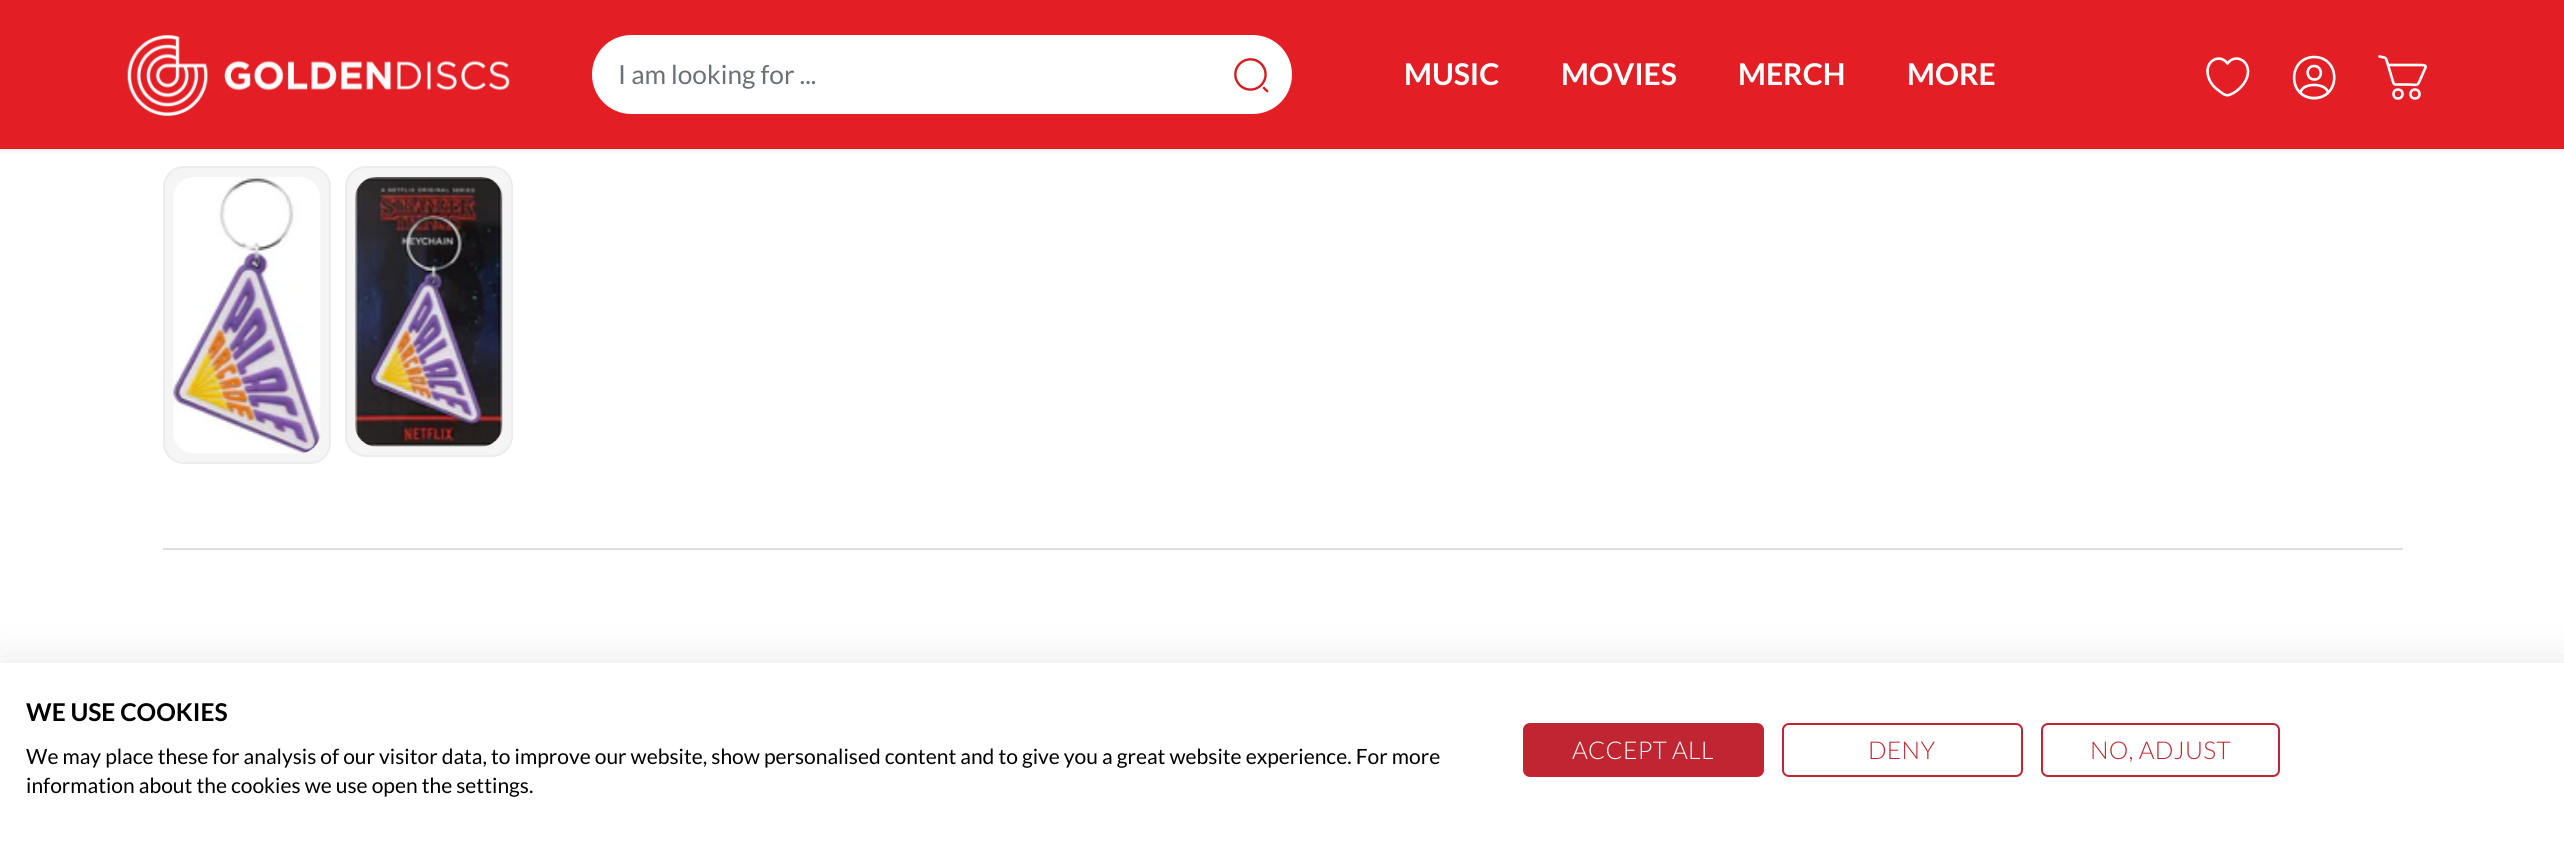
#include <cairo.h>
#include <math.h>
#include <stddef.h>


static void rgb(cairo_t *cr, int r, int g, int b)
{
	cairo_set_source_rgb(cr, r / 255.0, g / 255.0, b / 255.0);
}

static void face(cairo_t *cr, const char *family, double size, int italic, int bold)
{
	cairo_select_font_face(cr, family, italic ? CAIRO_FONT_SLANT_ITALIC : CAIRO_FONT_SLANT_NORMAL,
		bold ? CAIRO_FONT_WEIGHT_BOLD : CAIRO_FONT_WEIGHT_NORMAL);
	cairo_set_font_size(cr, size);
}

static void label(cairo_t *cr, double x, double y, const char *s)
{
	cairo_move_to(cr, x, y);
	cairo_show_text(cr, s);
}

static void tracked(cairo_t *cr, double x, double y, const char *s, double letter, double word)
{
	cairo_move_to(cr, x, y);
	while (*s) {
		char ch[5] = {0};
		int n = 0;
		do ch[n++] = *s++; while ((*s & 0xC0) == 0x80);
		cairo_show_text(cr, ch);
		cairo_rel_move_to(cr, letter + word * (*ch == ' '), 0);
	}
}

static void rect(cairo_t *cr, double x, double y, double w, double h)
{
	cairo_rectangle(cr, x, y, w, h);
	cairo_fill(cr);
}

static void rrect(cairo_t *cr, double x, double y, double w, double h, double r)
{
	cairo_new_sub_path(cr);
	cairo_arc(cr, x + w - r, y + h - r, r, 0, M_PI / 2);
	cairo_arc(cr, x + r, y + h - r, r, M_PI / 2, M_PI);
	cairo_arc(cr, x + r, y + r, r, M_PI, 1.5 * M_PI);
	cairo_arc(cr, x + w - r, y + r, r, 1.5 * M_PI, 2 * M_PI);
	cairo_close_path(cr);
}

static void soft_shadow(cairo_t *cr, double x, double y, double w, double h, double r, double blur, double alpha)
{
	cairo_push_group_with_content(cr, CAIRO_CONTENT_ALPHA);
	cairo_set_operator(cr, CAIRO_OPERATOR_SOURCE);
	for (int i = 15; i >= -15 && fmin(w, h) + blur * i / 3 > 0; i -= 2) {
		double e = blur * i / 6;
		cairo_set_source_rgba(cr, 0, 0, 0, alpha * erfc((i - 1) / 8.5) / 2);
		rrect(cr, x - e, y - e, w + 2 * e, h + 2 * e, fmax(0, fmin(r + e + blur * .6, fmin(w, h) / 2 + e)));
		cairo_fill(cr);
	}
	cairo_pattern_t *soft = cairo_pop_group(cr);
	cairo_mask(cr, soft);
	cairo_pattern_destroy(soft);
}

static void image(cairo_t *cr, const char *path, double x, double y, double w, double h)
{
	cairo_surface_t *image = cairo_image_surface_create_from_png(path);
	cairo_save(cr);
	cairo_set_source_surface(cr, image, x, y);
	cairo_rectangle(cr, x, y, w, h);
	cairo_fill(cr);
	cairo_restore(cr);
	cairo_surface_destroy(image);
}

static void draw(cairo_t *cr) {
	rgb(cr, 255, 255, 255);
	cairo_paint(cr);
	rgb(cr, 0, 0, 0);
	soft_shadow(cr, -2, -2, 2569, 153, 0, 2.5, 0.08);
	rgb(cr, 227, 30, 36);
	rect(cr, 0, 0, 2564, 149);
	image(cr, "image0.png", 127, 35, 383, 81);
	rgb(cr, 255, 255, 255);
	cairo_new_path(cr);
	cairo_move_to(cr, 631.5, 35);
	cairo_line_to(cr, 1213, 35);
	cairo_line_to(cr, 1213, 114);
	cairo_line_to(cr, 631.5, 114);
	cairo_curve_to(cr, 609.5, 114, 592, 96.5, 592, 74.5);
	cairo_curve_to(cr, 592, 52.5, 609.5, 35, 631.5, 35);
	cairo_close_path(cr);
	cairo_fill(cr);
	face(cr, "Lato", 26.25, 0, 0);
	rgb(cr, 107, 113, 119);
	label(cr, 618, 84, "I am looking for ...");
	rgb(cr, 255, 255, 255);
	cairo_new_path(cr);
	cairo_move_to(cr, 1211, 35);
	cairo_line_to(cr, 1252.5, 35);
	cairo_curve_to(cr, 1274.5, 35, 1292, 52.5, 1292, 74.5);
	cairo_curve_to(cr, 1292, 96.5, 1274.5, 114, 1252.5, 114);
	cairo_line_to(cr, 1211, 114);
	cairo_close_path(cr);
	cairo_fill(cr);
	image(cr, "image1.png", 1234, 58, 35, 35);
	face(cr, "Lato", 30, 0, 1);
	label(cr, 1404, 85, "MUSIC");
	label(cr, 1561, 85, "MOVIES");
	label(cr, 1738, 85, "MERCH");
	label(cr, 1907, 85, "MORE");
	cairo_new_path(cr);
	cairo_move_to(cr, 2229, 95);
	cairo_curve_to(cr, 2225.5, 96.5, 2220.5, 92, 2218, 90);
	cairo_curve_to(cr, 2213, 86.5, 2209.5, 81.5, 2208, 75.5);
	cairo_curve_to(cr, 2204.5, 60.5, 2220, 53, 2227.5, 63.5);
	cairo_curve_to(cr, 2237, 50.5, 2257, 65, 2243.5, 84);
	cairo_curve_to(cr, 2240, 88.5, 2235, 93, 2229, 95);
	cairo_close_path(cr);
	cairo_set_line_width(cr, 2.6);
	cairo_set_line_cap(cr, CAIRO_LINE_CAP_ROUND);
	cairo_set_line_join(cr, CAIRO_LINE_JOIN_ROUND);
	cairo_stroke(cr);
	cairo_new_path(cr);
	cairo_move_to(cr, 2314.5, 79.5);
	cairo_curve_to(cr, 2305.5, 79.5, 2305.5, 66, 2314, 66);
	cairo_curve_to(cr, 2323, 66, 2323, 79.5, 2314.5, 79.5);
	cairo_close_path(cr);
	cairo_move_to(cr, 2328, 93);
	cairo_curve_to(cr, 2320, 100, 2308, 100, 2300.5, 93);
	cairo_curve_to(cr, 2301.5, 82, 2327, 82.5, 2328, 93);
	cairo_close_path(cr);
	cairo_move_to(cr, 2314, 98);
	cairo_curve_to(cr, 2341, 98, 2341, 57, 2314, 57);
	cairo_curve_to(cr, 2287.5, 57.5, 2287.5, 98, 2314, 98);
	cairo_close_path(cr);
	cairo_stroke(cr);
	cairo_new_path(cr);
	cairo_move_to(cr, 2379.5, 56.5);
	cairo_curve_to(cr, 2387, 58, 2385.5, 57, 2388, 65);
	cairo_move_to(cr, 2388, 65);
	cairo_line_to(cr, 2392.5, 80);
	cairo_curve_to(cr, 2394, 85, 2393.5, 84.5, 2399, 84.5);
	cairo_line_to(cr, 2406, 84.5);
	cairo_curve_to(cr, 2420, 84.5, 2416.5, 87.5, 2422, 75.5);
	cairo_curve_to(cr, 2426, 65.5, 2429, 65, 2418, 65);
	cairo_close_path(cr);
	cairo_stroke(cr);
	cairo_arc(cr, 2398, 94, 4.5, 0, 2 * M_PI);
	cairo_set_line_cap(cr, CAIRO_LINE_CAP_BUTT);
	cairo_set_line_join(cr, CAIRO_LINE_JOIN_MITER);
	cairo_stroke(cr);
	cairo_arc(cr, 2415, 94, 4.5, 0, 2 * M_PI);
	cairo_stroke(cr);
	rgb(cr, 245, 245, 245);
	rrect(cr, 164, 167, 166, 296, 20);
	cairo_fill_preserve(cr);
	rgb(cr, 236, 236, 236);
	cairo_set_line_width(cr, 2);
	cairo_stroke(cr);
	image(cr, "image2.png", 173, 177, 148, 277);
	rgb(cr, 245, 245, 245);
	rrect(cr, 346, 167, 166, 289, 20);
	cairo_fill_preserve(cr);
	rgb(cr, 236, 236, 236);
	cairo_stroke(cr);
	image(cr, "image3.png", 355, 177, 148, 270);
	rgb(cr, 223, 223, 223);
	rect(cr, 163, 548, 2240, 2);
	rgb(cr, 0, 0, 0);
	soft_shadow(cr, 0, 663, 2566, 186, 0, 21, 0.1);
	rgb(cr, 255, 255, 255);
	rect(cr, 0, 663, 2564, 185);
	face(cr, "Lato", 24.5, 0, 1);
	rgb(cr, 0, 0, 0);
	label(cr, 26, 721, "WE USE COOKIES");
	face(cr, "Lato", 21, 0, 0);
	label(cr, 26, 764, "We may place these for analysis of our visitor data, to improve our website, show personalised content and to give you a great website experience. For more");
	label(cr, 26, 793, "information about the cookies we use open the settings.");
	rgb(cr, 192, 38, 49);
	rrect(cr, 1524, 724, 239, 52, 6);
	cairo_fill_preserve(cr);
	cairo_stroke(cr);
	face(cr, "Lato Light", 24.5, 0, 0);
	rgb(cr, 255, 255, 255);
	tracked(cr, 1572, 759, "ACCEPT ALL", 0.25, 0);
	rrect(cr, 1783, 724, 239, 52, 6);
	rgb(cr, 192, 38, 49);
	cairo_stroke(cr);
	tracked(cr, 1868, 759, "DENY", 0.25, 0);
	rrect(cr, 2042, 724, 237, 52, 6);
	cairo_stroke(cr);
	tracked(cr, 2090, 759, "NO, ADJUST", 0.25, 0);
}

int main(void) {
	cairo_surface_t *surface = cairo_image_surface_create(CAIRO_FORMAT_RGB24, 2564, 848);
	cairo_t *cr = cairo_create(surface);
	cairo_font_options_t *options = cairo_font_options_create();
	cairo_font_options_set_hint_metrics(options, CAIRO_HINT_METRICS_OFF);
	cairo_font_options_set_hint_style(options, CAIRO_HINT_STYLE_NONE);
	cairo_set_font_options(cr, options);
	cairo_set_miter_limit(cr, 4);
	draw(cr);
	cairo_surface_write_to_png(surface, "render.png");
	cairo_font_options_destroy(options);
	cairo_destroy(cr);
	cairo_surface_destroy(surface);
	return 0;
}
